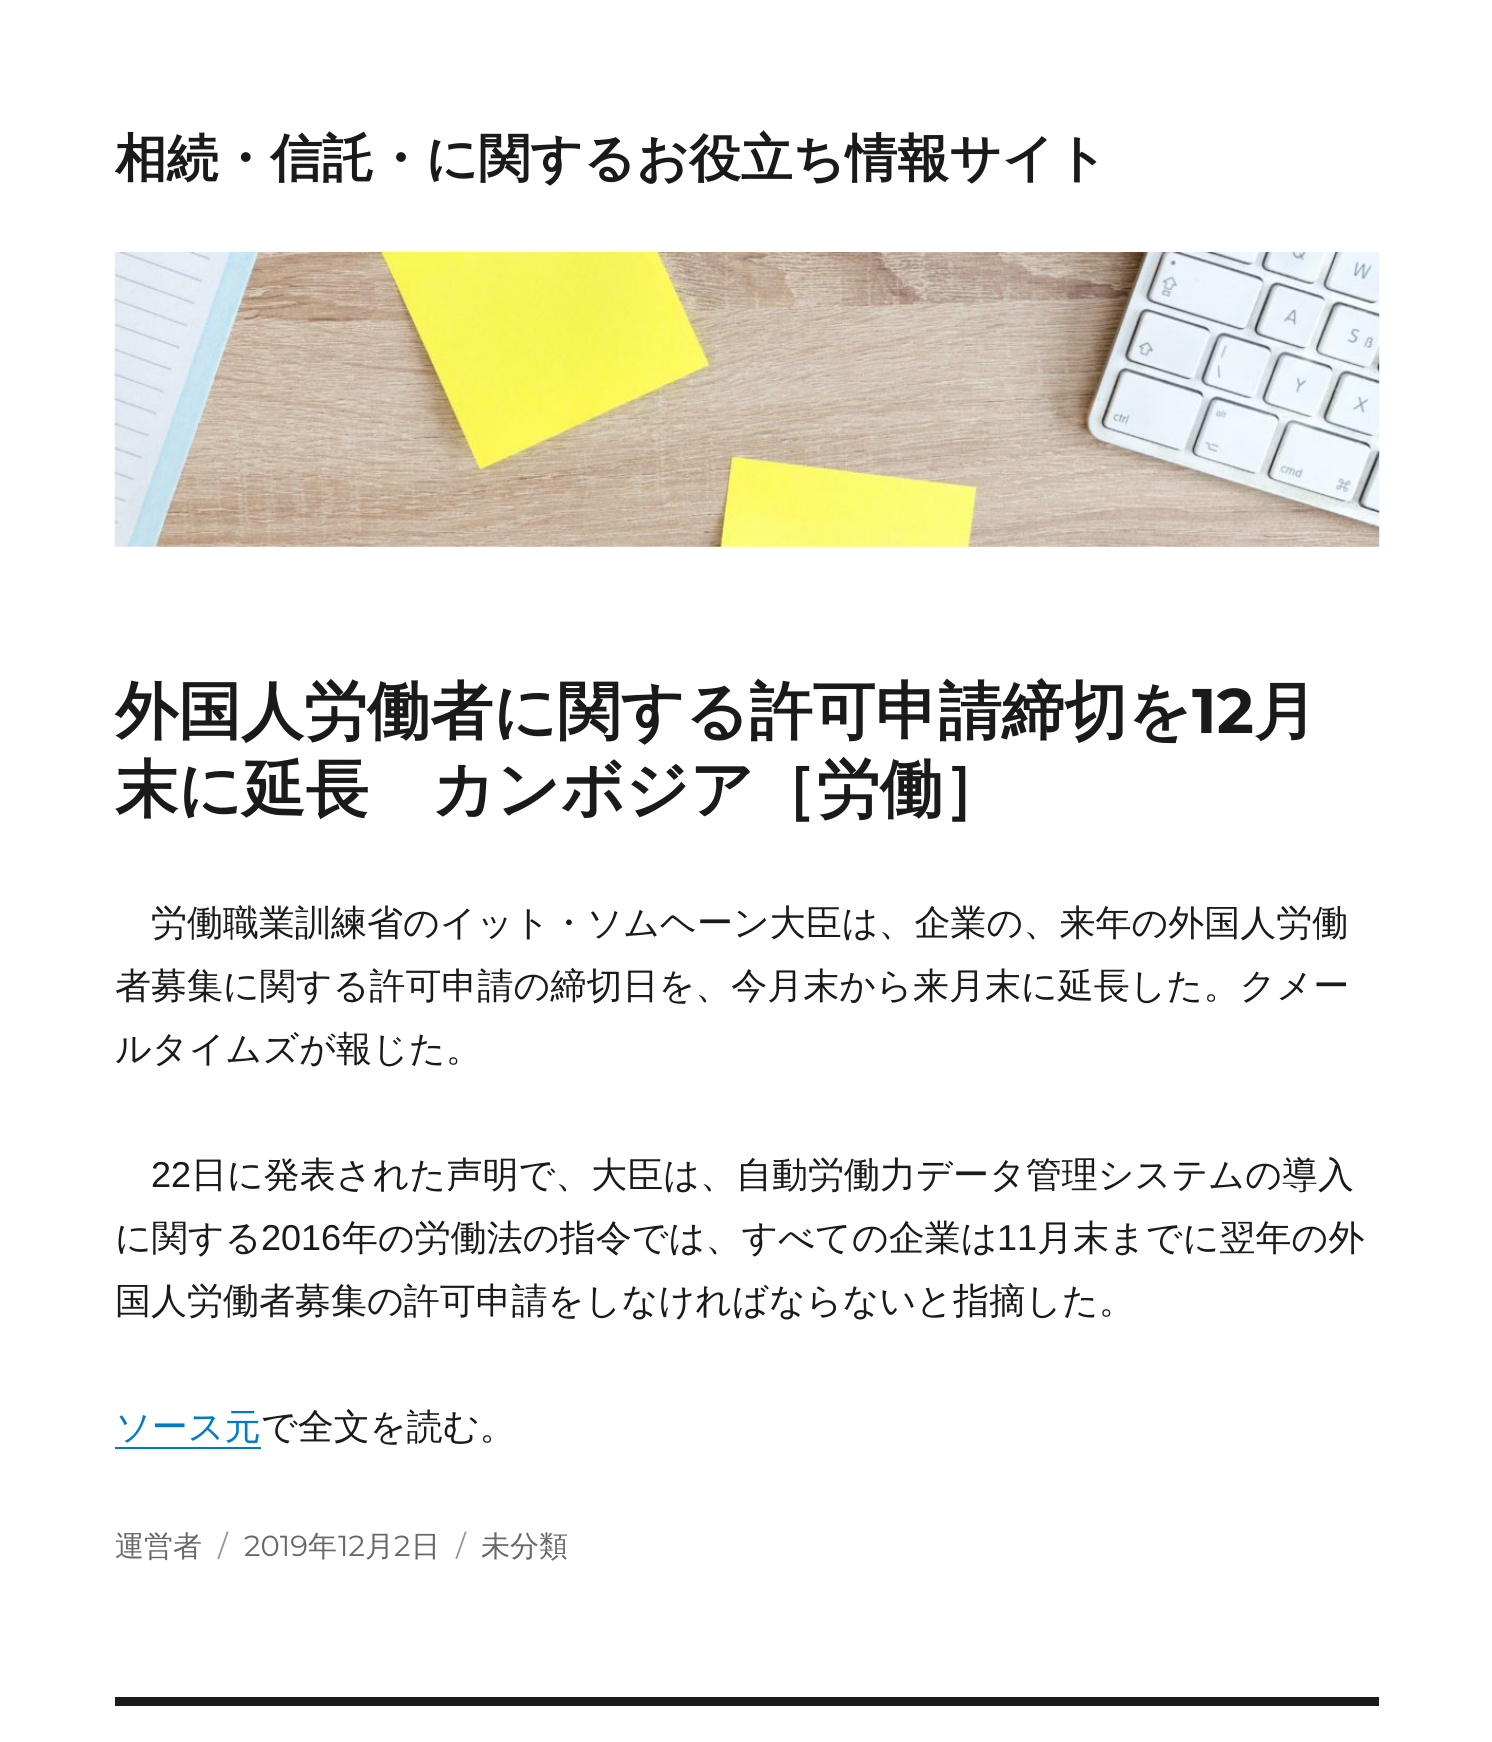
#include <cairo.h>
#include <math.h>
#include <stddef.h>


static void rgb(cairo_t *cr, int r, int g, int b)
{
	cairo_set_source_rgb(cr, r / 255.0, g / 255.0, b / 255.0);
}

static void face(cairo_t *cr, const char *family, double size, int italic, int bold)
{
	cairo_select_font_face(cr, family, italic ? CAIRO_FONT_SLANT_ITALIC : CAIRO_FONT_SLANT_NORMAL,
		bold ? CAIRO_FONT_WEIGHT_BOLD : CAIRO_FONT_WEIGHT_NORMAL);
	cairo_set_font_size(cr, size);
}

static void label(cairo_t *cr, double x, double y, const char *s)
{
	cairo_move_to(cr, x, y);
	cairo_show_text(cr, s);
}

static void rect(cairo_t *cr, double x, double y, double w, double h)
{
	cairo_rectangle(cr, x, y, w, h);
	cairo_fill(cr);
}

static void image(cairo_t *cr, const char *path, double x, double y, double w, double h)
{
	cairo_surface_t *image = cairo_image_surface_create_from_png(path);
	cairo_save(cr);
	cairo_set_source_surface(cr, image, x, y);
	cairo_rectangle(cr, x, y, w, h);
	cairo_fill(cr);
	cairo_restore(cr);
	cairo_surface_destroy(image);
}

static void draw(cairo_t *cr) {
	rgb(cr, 255, 255, 255);
	cairo_paint(cr);
	face(cr, "WenQuanYi Zen Hei", 51.75, 0, 1);
	rgb(cr, 26, 26, 26);
	label(cr, 115, 176, "相続・信託・に関するお役立ち情報サイト");
	image(cr, "image0.png", 114, 252, 1266, 295);
	face(cr, "WenQuanYi Zen Hei", 63, 0, 1);
	label(cr, 115, 733, "外国人労働者に関する許可申請締切を");
	face(cr, "Montserrat", 63, 0, 1);
	label(cr, 1192, 733, "12");
	face(cr, "WenQuanYi Zen Hei", 63, 0, 1);
	label(cr, 1254, 733, "月");
	label(cr, 115, 811, "末に延長　カンボジア［労働］");
	face(cr, "WenQuanYi Zen Hei Medium", 36, 0, 0);
	label(cr, 151, 935, "労働職業訓練省のイット・ソムヘーン大臣は、企業の、来年の外国人労働");
	label(cr, 115, 998, "者募集に関する許可申請の締切日を、今月末から来月末に延長した。クメー");
	label(cr, 115, 1061, "ルタイムズが報じた。");
	face(cr, "Liberation Sans", 36, 0, 0);
	label(cr, 151, 1187, "22");
	face(cr, "WenQuanYi Zen Hei Medium", 36, 0, 0);
	label(cr, 191, 1187, "日に発表された声明で、大臣は、自動労働力データ管理システムの導入");
	label(cr, 115, 1250, "に関する");
	face(cr, "Liberation Sans", 36, 0, 0);
	label(cr, 261, 1250, "2016");
	face(cr, "WenQuanYi Zen Hei Medium", 36, 0, 0);
	label(cr, 342, 1250, "年の労働法の指令では、すべての企業は");
	face(cr, "Liberation Sans", 36, 0, 0);
	label(cr, 997, 1250, "11");
	face(cr, "WenQuanYi Zen Hei Medium", 36, 0, 0);
	label(cr, 1037, 1250, "月末までに翌年の外");
	label(cr, 115, 1313, "国人労働者募集の許可申請をしなければならないと指摘した。");
	rgb(cr, 0, 122, 204);
	label(cr, 115, 1439, "ソース元");
	rect(cr, 115, 1447, 146, 2);
	rgb(cr, 26, 26, 26);
	label(cr, 261, 1439, "で全文を読む。");
	face(cr, "WenQuanYi Zen Hei Medium", 29, 0, 0);
	rgb(cr, 104, 104, 104);
	label(cr, 115, 1556, "運営者");
	face(cr, "Montserrat", 29, 0, 0);
	rgb(cr, 149, 149, 149);
	label(cr, 218, 1556, "/");
	rgb(cr, 104, 104, 104);
	label(cr, 244, 1556, "2019");
	face(cr, "WenQuanYi Zen Hei Medium", 29, 0, 0);
	label(cr, 308, 1556, "年");
	face(cr, "Montserrat", 29, 0, 0);
	label(cr, 338, 1556, "12");
	face(cr, "WenQuanYi Zen Hei Medium", 29, 0, 0);
	label(cr, 365, 1556, "月");
	face(cr, "Montserrat", 29, 0, 0);
	label(cr, 394, 1556, "2");
	face(cr, "WenQuanYi Zen Hei Medium", 29, 0, 0);
	label(cr, 411, 1556, "日");
	face(cr, "Montserrat", 29, 0, 0);
	rgb(cr, 149, 149, 149);
	label(cr, 456, 1556, "/");
	face(cr, "WenQuanYi Zen Hei Medium", 29, 0, 0);
	rgb(cr, 104, 104, 104);
	label(cr, 481, 1556, "未分類");
	rgb(cr, 26, 26, 26);
	rect(cr, 115, 1697, 1264, 9);
}

int main(void) {
	cairo_surface_t *surface = cairo_image_surface_create(CAIRO_FORMAT_RGB24, 1492, 1742);
	cairo_t *cr = cairo_create(surface);
	cairo_font_options_t *options = cairo_font_options_create();
	cairo_font_options_set_hint_metrics(options, CAIRO_HINT_METRICS_OFF);
	cairo_font_options_set_hint_style(options, CAIRO_HINT_STYLE_NONE);
	cairo_set_font_options(cr, options);
	cairo_set_miter_limit(cr, 4);
	draw(cr);
	cairo_surface_write_to_png(surface, "render.png");
	cairo_font_options_destroy(options);
	cairo_destroy(cr);
	cairo_surface_destroy(surface);
	return 0;
}
